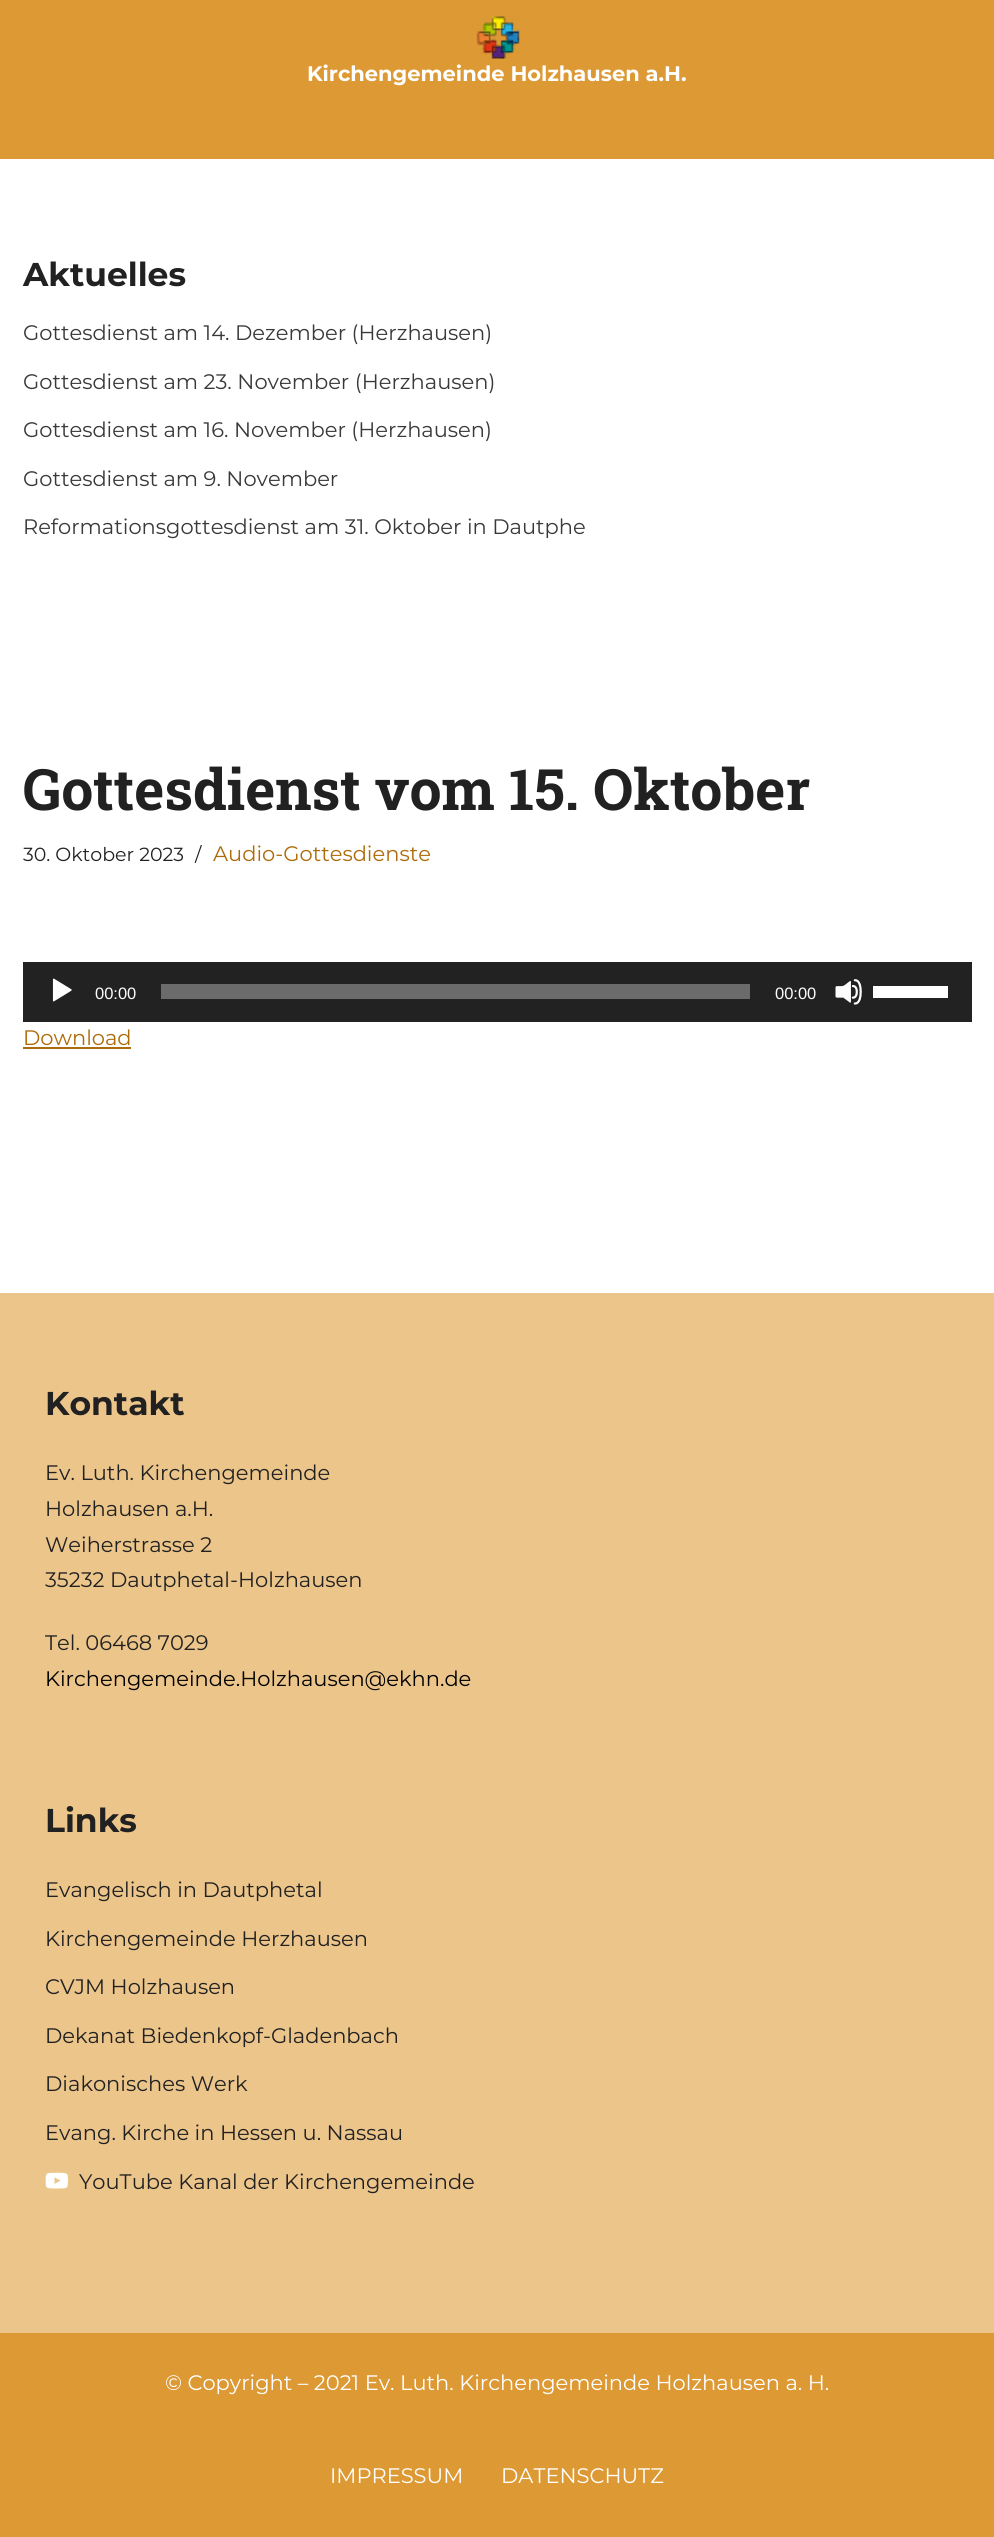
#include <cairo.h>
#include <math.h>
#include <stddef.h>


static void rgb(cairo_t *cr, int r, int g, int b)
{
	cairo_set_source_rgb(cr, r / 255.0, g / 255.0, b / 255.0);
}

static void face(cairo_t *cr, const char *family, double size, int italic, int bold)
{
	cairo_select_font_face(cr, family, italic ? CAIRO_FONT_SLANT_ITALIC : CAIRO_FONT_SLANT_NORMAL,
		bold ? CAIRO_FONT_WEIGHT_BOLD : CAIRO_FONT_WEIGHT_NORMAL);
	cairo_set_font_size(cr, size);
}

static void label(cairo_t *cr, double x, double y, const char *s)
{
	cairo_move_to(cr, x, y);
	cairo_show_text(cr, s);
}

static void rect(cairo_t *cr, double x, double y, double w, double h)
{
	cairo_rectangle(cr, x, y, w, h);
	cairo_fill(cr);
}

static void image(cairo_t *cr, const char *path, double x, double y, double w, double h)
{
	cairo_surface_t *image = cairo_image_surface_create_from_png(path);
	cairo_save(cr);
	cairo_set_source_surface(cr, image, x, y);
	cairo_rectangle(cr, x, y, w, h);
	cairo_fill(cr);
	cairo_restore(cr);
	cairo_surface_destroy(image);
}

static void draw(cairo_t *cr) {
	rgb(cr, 255, 255, 255);
	cairo_paint(cr);
	rgb(cr, 221, 153, 51);
	rect(cr, 0, 0, 994, 159);
	image(cr, "image0.png", 476, 16, 45, 43);
	face(cr, "Montserrat", 21, 0, 1);
	rgb(cr, 255, 255, 255);
	label(cr, 307, 81, "Kirchengemeinde Holzhausen a.H.");
	face(cr, "Montserrat", 33, 0, 1);
	rgb(cr, 33, 33, 33);
	label(cr, 23, 286, "Aktuelles");
	face(cr, "Montserrat", 21, 0, 0);
	rgb(cr, 57, 57, 57);
	label(cr, 23, 340, "Gottesdienst am 14. Dezember (Herzhausen)");
	label(cr, 23, 389, "Gottesdienst am 23. November (Herzhausen)");
	label(cr, 23, 437, "Gottesdienst am 16. November (Herzhausen)");
	label(cr, 23, 486, "Gottesdienst am 9. November");
	label(cr, 23, 534, "Reformationsgottesdienst am 31. Oktober in Dautphe");
	face(cr, "Roboto Slab", 57, 0, 1);
	rgb(cr, 33, 33, 33);
	label(cr, 23, 810, "Gottesdienst vom 15. Oktober");
	face(cr, "Montserrat", 19, 0, 0);
	label(cr, 23, 861, "30. Oktober 2023");
	label(cr, 195, 861, "/");
	face(cr, "Montserrat", 21, 0, 0);
	rgb(cr, 173, 108, 11);
	label(cr, 213, 861, "Audio-Gottesdienste");
	rgb(cr, 34, 34, 34);
	rect(cr, 23, 962, 949, 60);
	image(cr, "image1.png", 52, 978, 20, 24);
	face(cr, "Liberation Sans", 16.5, 0, 0);
	rgb(cr, 255, 255, 255);
	label(cr, 95, 999, "00:00");
	rgb(cr, 107, 107, 107);
	rect(cr, 161, 984, 589, 15);
	rgb(cr, 255, 255, 255);
	label(cr, 775, 999, "00:00");
	image(cr, "image2.png", 835, 979, 27, 26);
	rect(cr, 873, 986, 75, 12);
	face(cr, "Montserrat", 21, 0, 0);
	rgb(cr, 173, 108, 11);
	label(cr, 23, 1045, "Download");
	rect(cr, 23, 1047, 108, 2);
	rgb(cr, 236, 197, 139);
	rect(cr, 0, 1293, 994, 1040);
	face(cr, "Montserrat", 33, 0, 1);
	rgb(cr, 33, 33, 33);
	label(cr, 45, 1415, "Kontakt");
	face(cr, "Montserrat", 21, 0, 0);
	label(cr, 45, 1480, "Ev. Luth. Kirchengemeinde");
	label(cr, 45, 1516, "Holzhausen a.H.");
	label(cr, 45, 1552, "Weiherstrasse 2");
	label(cr, 45, 1587, "35232 Dautphetal-Holzhausen");
	label(cr, 45, 1650, "Tel. 06468 7029");
	rgb(cr, 0, 0, 0);
	label(cr, 45, 1686, "Kirchengemeinde.Holzhausen@ekhn.de");
	face(cr, "Montserrat", 33, 0, 1);
	rgb(cr, 33, 33, 33);
	label(cr, 45, 1832, "Links");
	face(cr, "Montserrat", 21, 0, 0);
	label(cr, 45, 1897, "Evangelisch in Dautphetal");
	label(cr, 45, 1946, "Kirchengemeinde Herzhausen");
	label(cr, 45, 1994, "CVJM Holzhausen");
	label(cr, 45, 2043, "Dekanat Biedenkopf-Gladenbach");
	label(cr, 45, 2091, "Diakonisches Werk");
	label(cr, 45, 2140, "Evang. Kirche in Hessen u. Nassau");
	image(cr, "image3.png", 45, 2172, 23, 17);
	label(cr, 79, 2189, "YouTube Kanal der Kirchengemeinde");
	rgb(cr, 221, 153, 51);
	rect(cr, 0, 2333, 994, 204);
	rgb(cr, 255, 255, 255);
	label(cr, 165, 2390, "© Copyright – 2021 Ev. Luth. Kirchengemeinde Holzhausen a. H.");
	label(cr, 330, 2483, "IMPRESSUM");
	label(cr, 501, 2483, "DATENSCHUTZ");
}

int main(void) {
	cairo_surface_t *surface = cairo_image_surface_create(CAIRO_FORMAT_RGB24, 994, 2537);
	cairo_t *cr = cairo_create(surface);
	cairo_font_options_t *options = cairo_font_options_create();
	cairo_font_options_set_hint_metrics(options, CAIRO_HINT_METRICS_OFF);
	cairo_font_options_set_hint_style(options, CAIRO_HINT_STYLE_NONE);
	cairo_set_font_options(cr, options);
	cairo_set_miter_limit(cr, 4);
	draw(cr);
	cairo_surface_write_to_png(surface, "render.png");
	cairo_font_options_destroy(options);
	cairo_destroy(cr);
	cairo_surface_destroy(surface);
	return 0;
}
